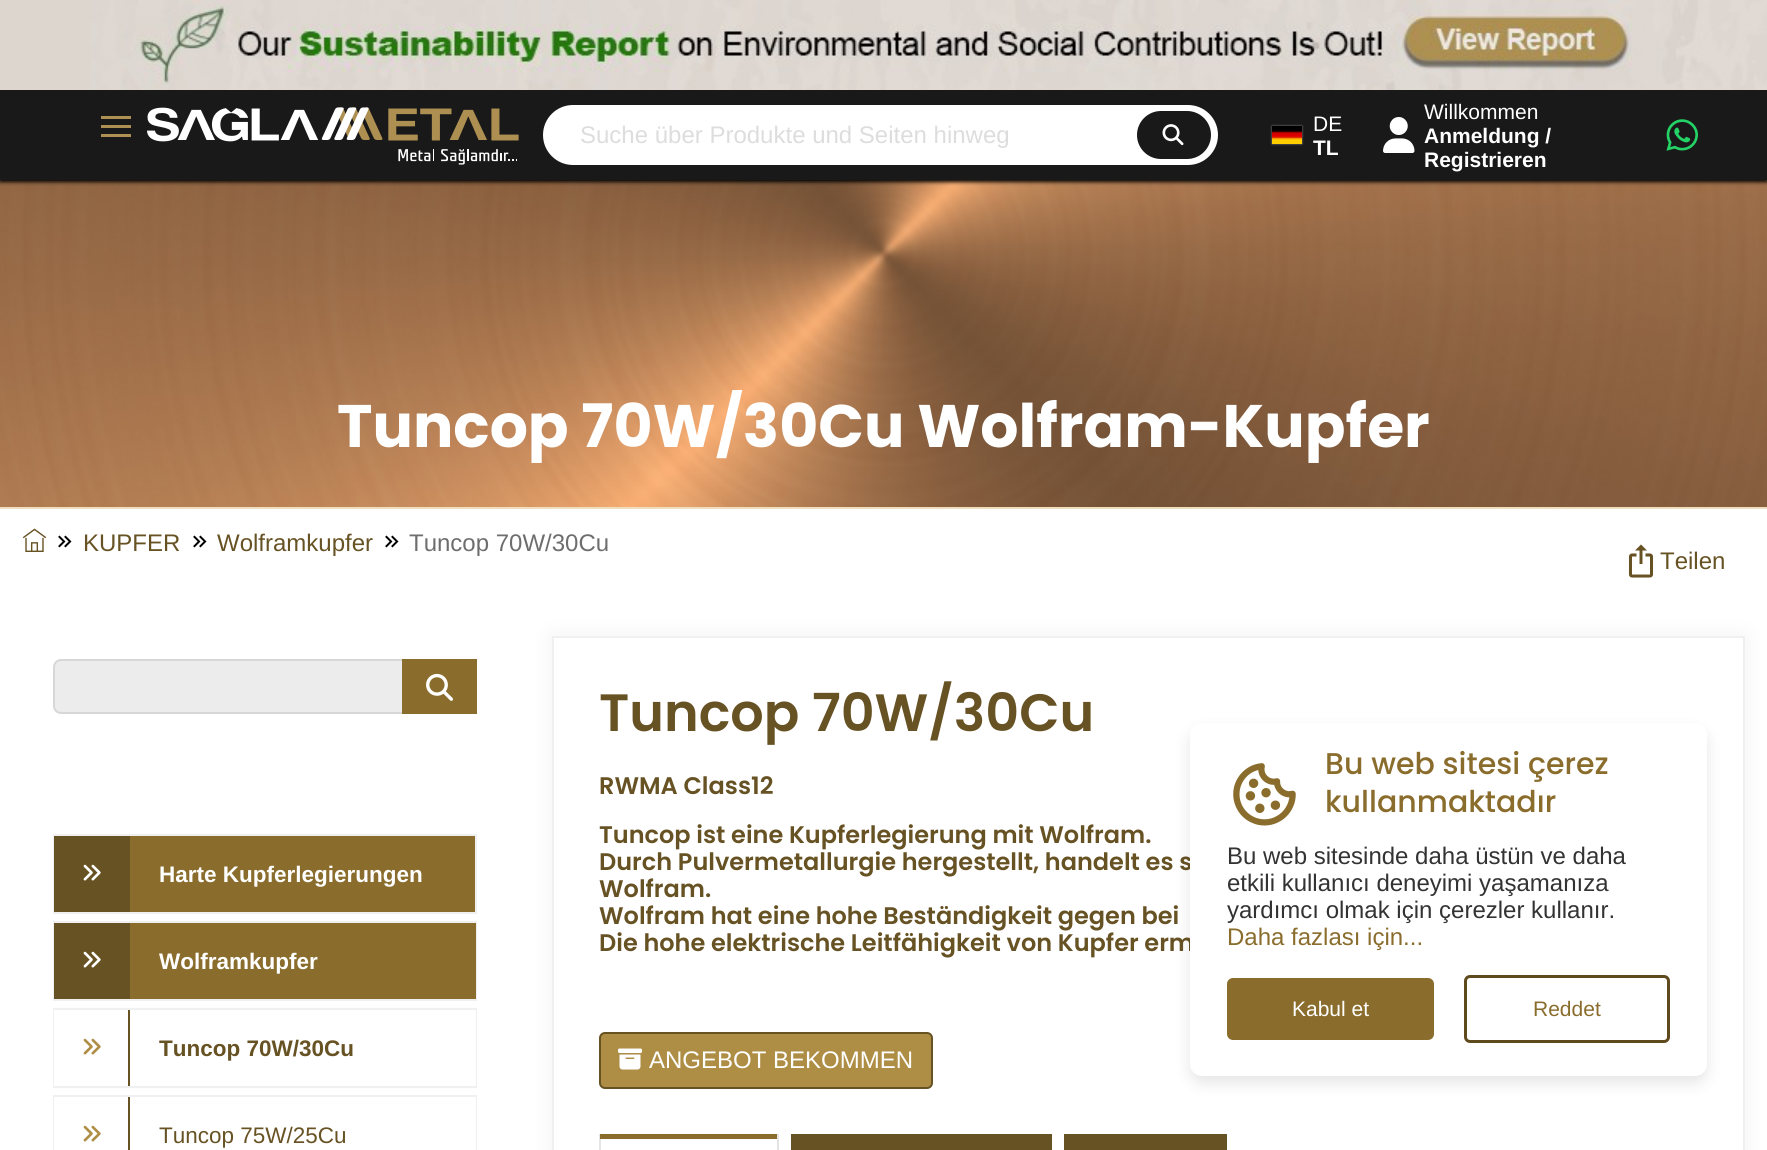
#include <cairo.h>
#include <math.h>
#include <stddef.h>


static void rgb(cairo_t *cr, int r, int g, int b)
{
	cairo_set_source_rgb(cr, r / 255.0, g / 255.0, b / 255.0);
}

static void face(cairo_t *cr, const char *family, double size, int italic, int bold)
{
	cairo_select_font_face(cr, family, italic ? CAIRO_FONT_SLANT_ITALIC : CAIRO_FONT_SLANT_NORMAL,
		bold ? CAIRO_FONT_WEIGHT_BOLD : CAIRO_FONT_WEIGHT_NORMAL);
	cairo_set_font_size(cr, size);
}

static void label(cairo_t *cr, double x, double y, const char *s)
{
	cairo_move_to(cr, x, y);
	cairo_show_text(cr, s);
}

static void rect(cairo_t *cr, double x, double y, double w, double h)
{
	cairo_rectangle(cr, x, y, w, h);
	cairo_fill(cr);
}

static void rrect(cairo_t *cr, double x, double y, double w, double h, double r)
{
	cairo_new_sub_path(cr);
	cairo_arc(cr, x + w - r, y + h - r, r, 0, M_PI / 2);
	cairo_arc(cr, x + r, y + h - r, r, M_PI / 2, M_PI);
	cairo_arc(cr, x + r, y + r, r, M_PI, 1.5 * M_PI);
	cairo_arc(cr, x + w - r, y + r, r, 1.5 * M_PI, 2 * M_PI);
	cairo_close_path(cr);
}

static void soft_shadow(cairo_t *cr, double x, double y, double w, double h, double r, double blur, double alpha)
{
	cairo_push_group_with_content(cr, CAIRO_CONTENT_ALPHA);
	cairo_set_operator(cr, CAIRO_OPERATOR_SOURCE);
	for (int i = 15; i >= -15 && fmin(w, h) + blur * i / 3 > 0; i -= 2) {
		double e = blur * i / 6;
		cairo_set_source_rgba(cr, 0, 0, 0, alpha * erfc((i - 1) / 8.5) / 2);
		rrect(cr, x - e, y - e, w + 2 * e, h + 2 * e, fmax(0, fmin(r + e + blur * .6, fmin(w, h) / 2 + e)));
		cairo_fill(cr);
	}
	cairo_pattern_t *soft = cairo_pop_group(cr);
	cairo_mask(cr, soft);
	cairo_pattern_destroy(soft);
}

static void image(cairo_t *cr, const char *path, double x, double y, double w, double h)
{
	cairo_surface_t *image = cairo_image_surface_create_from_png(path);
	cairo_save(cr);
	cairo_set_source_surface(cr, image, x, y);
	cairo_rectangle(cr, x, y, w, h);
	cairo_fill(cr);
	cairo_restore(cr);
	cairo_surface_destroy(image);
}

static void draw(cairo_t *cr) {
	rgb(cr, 255, 255, 255);
	cairo_paint(cr);
	image(cr, "image6.png", 0, 180, 1767, 327);
	rgb(cr, 0, 0, 0);
	soft_shadow(cr, 0, 2, 1767, 180, 0, 2, 1);
	rgb(cr, 220, 214, 207);
	rect(cr, 0, 0, 91, 90);
	image(cr, "image0.png", 91, 0, 1676, 90);
	rgb(cr, 25, 25, 25);
	rect(cr, 0, 90, 1767, 90);
	rgb(cr, 173, 144, 82);
	rect(cr, 101, 125, 30, 3);
	rect(cr, 101, 116, 30, 3);
	rect(cr, 101, 134, 30, 3);
	image(cr, "image1.png", 147, 107, 372, 58);
	rgb(cr, 255, 255, 255);
	rrect(cr, 543, 105, 675, 60, 30);
	cairo_fill(cr);
	face(cr, "Liberation Sans", 24, 0, 0);
	rgb(cr, 221, 221, 221);
	label(cr, 580, 143, "Suche über Produkte und Seiten hinweg");
	rgb(cr, 25, 25, 25);
	rrect(cr, 1137, 111, 74, 48, 24);
	cairo_fill(cr);
	image(cr, "image2.png", 1162, 124, 22, 22);
	rgb(cr, 136, 136, 136);
	soft_shadow(cr, 1272, 126, 30, 18, 0, 1, 1);
	image(cr, "image3.png", 1272, 126, 30, 18);
	face(cr, "Liberation Sans", 21, 0, 0);
	rgb(cr, 255, 255, 255);
	label(cr, 1313, 131, "DE");
	face(cr, "Liberation Sans", 21, 0, 1);
	label(cr, 1313, 155, "TL");
	image(cr, "image4.png", 1383, 117, 32, 36);
	face(cr, "Liberation Sans", 21, 0, 0);
	label(cr, 1424, 119, "Willkommen");
	face(cr, "Liberation Sans", 21, 0, 1);
	label(cr, 1424, 143, "Anmeldung /");
	label(cr, 1424, 167, "Registrieren");
	image(cr, "image5.png", 1666, 119, 32, 32);
	rgb(cr, 239, 223, 191);
	rect(cr, 0, 507, 1767, 2);
	face(cr, "Poppins", 60, 0, 1);
	rgb(cr, 255, 255, 255);
	label(cr, 337, 447, "Tuncop 70W/30Cu Wolfram-Kupfer");
	image(cr, "image7.png", 22, 528, 25, 24);
	image(cr, "image8.png", 58, 535, 14, 13);
	face(cr, "Liberation Sans", 24, 0, 0);
	rgb(cr, 103, 82, 36);
	label(cr, 83, 551, "KUPFER");
	image(cr, "image8.png", 193, 535, 14, 13);
	label(cr, 217, 551, "Wolframkupfer");
	image(cr, "image8.png", 385, 535, 14, 13);
	rgb(cr, 110, 110, 110);
	label(cr, 409, 551, "Tuncop 70W/30Cu");
	image(cr, "image9.png", 1628, 544, 26, 34);
	rgb(cr, 103, 82, 36);
	label(cr, 1660, 569, "Teilen");
	rgb(cr, 236, 236, 236);
	rrect(cr, 54, 660, 422, 53, 7);
	cairo_fill_preserve(cr);
	rgb(cr, 215, 215, 215);
	cairo_stroke(cr);
	rgb(cr, 138, 109, 45);
	rect(cr, 402, 659, 75, 55);
	image(cr, "image10.png", 426, 673, 27, 28);
	rect(cr, 130, 836, 345, 76);
	cairo_rectangle(cr, 54, 835, 422, 78);
	rgb(cr, 240, 240, 240);
	cairo_stroke(cr);
	rgb(cr, 103, 82, 36);
	rect(cr, 54, 836, 76, 76);
	image(cr, "image11.png", 83, 864, 18, 17);
	face(cr, "Liberation Sans", 22.5, 0, 1);
	rgb(cr, 255, 255, 255);
	label(cr, 159, 882, "Harte Kupferlegierungen");
	cairo_rectangle(cr, 54, 922, 422, 78);
	rgb(cr, 240, 240, 240);
	cairo_stroke(cr);
	rgb(cr, 103, 82, 36);
	rect(cr, 54, 923, 76, 76);
	image(cr, "image11.png", 83, 951, 18, 17);
	rgb(cr, 138, 109, 45);
	rect(cr, 130, 923, 346, 76);
	rgb(cr, 255, 255, 255);
	label(cr, 159, 969, "Wolframkupfer");
	cairo_rectangle(cr, 54, 1009, 422, 78);
	rgb(cr, 240, 240, 240);
	cairo_stroke(cr);
	rgb(cr, 255, 255, 255);
	rect(cr, 54, 1010, 422, 76);
	rgb(cr, 103, 82, 36);
	rect(cr, 128, 1010, 2, 76);
	image(cr, "image12.png", 83, 1038, 18, 17);
	label(cr, 159, 1056, "Tuncop 70W/30Cu");
	cairo_rectangle(cr, 54, 1096, 422, 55);
	rgb(cr, 240, 240, 240);
	cairo_stroke(cr);
	rgb(cr, 255, 255, 255);
	rect(cr, 54, 1097, 422, 53);
	rgb(cr, 103, 82, 36);
	rect(cr, 128, 1097, 2, 53);
	image(cr, "image12.png", 83, 1125, 18, 17);
	face(cr, "Liberation Sans", 22.5, 0, 0);
	label(cr, 159, 1143, "Tuncop 75W/25Cu");
	rgb(cr, 40, 61, 88);
	soft_shadow(cr, 552, 636, 1193, 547, 0, 11, 0.07);
	rgb(cr, 255, 255, 255);
	cairo_rectangle(cr, 553, 637, 1191, 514);
	cairo_fill_preserve(cr);
	rgb(cr, 240, 240, 240);
	cairo_stroke(cr);
	face(cr, "Poppins SemiBold", 52.5, 0, 0);
	rgb(cr, 103, 82, 36);
	label(cr, 599, 731, "Tuncop 70W/30Cu");
	face(cr, "Poppins SemiBold", 24, 0, 0);
	label(cr, 599, 794, "RWMA Class12");
	label(cr, 599, 843, "Tuncop ist eine Kupferlegierung mit Wolfram.");
	label(cr, 599, 870, "Durch Pulvermetallurgie hergestellt, handelt es s");
	label(cr, 599, 897, "Wolfram.");
	label(cr, 599, 924, "Wolfram hat eine hohe Beständigkeit gegen bei");
	label(cr, 599, 951, "Die hohe elektrische Leitfähigkeit von Kupfer erm");
	rgb(cr, 174, 141, 69);
	rrect(cr, 600, 1033, 332, 55, 5);
	cairo_fill_preserve(cr);
	rgb(cr, 103, 82, 36);
	cairo_stroke(cr);
	image(cr, "image13.png", 618, 1048, 24, 22);
	face(cr, "Liberation Sans", 24, 0, 0);
	rgb(cr, 255, 255, 255);
	label(cr, 649, 1068, "ANGEBOT BEKOMMEN");
	cairo_rectangle(cr, 600, 1135, 178, 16);
	rgb(cr, 228, 228, 228);
	cairo_stroke(cr);
	rgb(cr, 138, 109, 45);
	rect(cr, 600, 1134, 177, 5);
	rgb(cr, 103, 82, 36);
	rect(cr, 791, 1134, 261, 16);
	rect(cr, 1064, 1134, 163, 16);
	rgb(cr, 0, 0, 0);
	soft_shadow(cr, 1190, 731, 517, 352, 12, 7.5, 0.1);
	rgb(cr, 255, 255, 255);
	rrect(cr, 1190, 723, 517, 353, 12);
	cairo_fill(cr);
	image(cr, "image14.png", 1233, 763, 63, 63);
	face(cr, "Poppins Medium", 30, 0, 0);
	rgb(cr, 138, 109, 45);
	label(cr, 1325, 774, "Bu web sitesi çerez");
	label(cr, 1325, 812, "kullanmaktadır");
	face(cr, "Liberation Sans", 24, 0, 0);
	rgb(cr, 51, 51, 51);
	label(cr, 1227, 864, "Bu web sitesinde daha üstün ve daha");
	label(cr, 1227, 891, "etkili kullanıcı deneyimi yaşamanıza");
	label(cr, 1227, 918, "yardımcı olmak için çerezler kullanır.");
	rgb(cr, 138, 109, 45);
	label(cr, 1227, 945, "Daha fazlası için...");
	rrect(cr, 1227, 978, 207, 62, 6);
	cairo_fill(cr);
	face(cr, "Liberation Sans", 21, 0, 0);
	rgb(cr, 255, 255, 255);
	label(cr, 1292, 1016, "Kabul et");
	rrect(cr, 1465.5, 976.5, 203, 65, 4.5);
	rgb(cr, 95, 74, 30);
	cairo_set_line_width(cr, 3);
	cairo_stroke(cr);
	rgb(cr, 138, 109, 45);
	label(cr, 1533, 1016, "Reddet");
}

int main(void) {
	cairo_surface_t *surface = cairo_image_surface_create(CAIRO_FORMAT_RGB24, 1767, 1150);
	cairo_t *cr = cairo_create(surface);
	cairo_font_options_t *options = cairo_font_options_create();
	cairo_font_options_set_hint_metrics(options, CAIRO_HINT_METRICS_OFF);
	cairo_font_options_set_hint_style(options, CAIRO_HINT_STYLE_NONE);
	cairo_set_font_options(cr, options);
	cairo_set_miter_limit(cr, 4);
	draw(cr);
	cairo_surface_write_to_png(surface, "render.png");
	cairo_font_options_destroy(options);
	cairo_destroy(cr);
	cairo_surface_destroy(surface);
	return 0;
}
